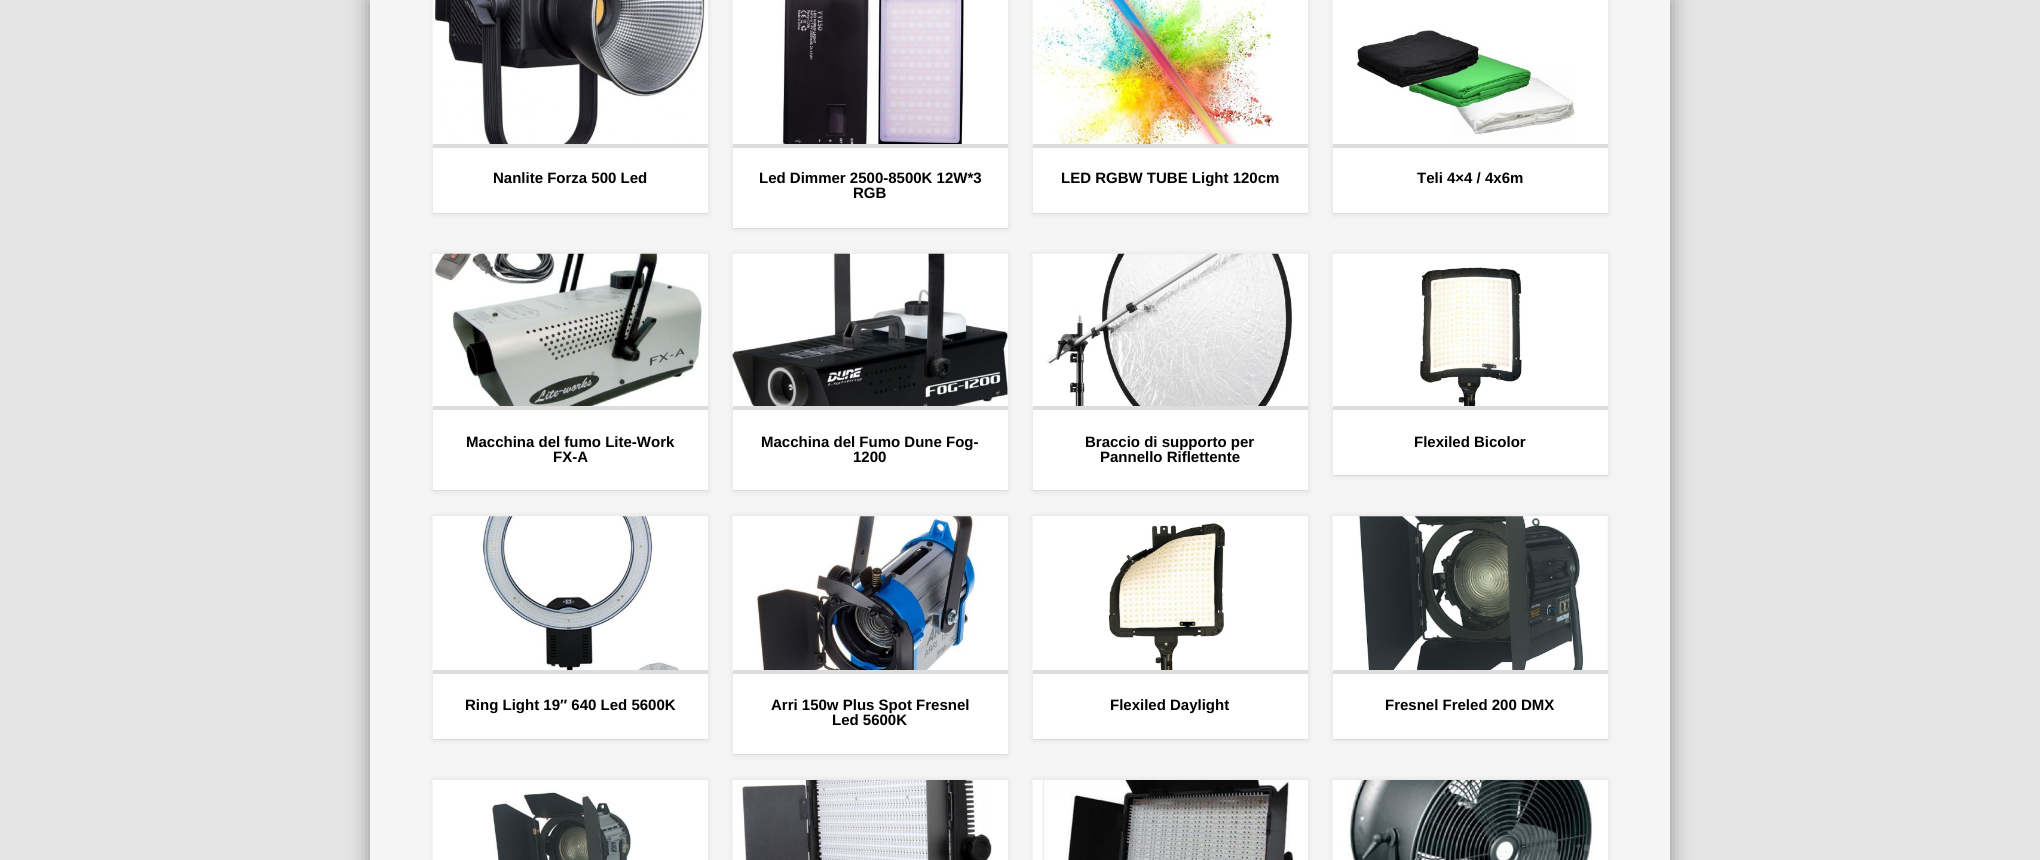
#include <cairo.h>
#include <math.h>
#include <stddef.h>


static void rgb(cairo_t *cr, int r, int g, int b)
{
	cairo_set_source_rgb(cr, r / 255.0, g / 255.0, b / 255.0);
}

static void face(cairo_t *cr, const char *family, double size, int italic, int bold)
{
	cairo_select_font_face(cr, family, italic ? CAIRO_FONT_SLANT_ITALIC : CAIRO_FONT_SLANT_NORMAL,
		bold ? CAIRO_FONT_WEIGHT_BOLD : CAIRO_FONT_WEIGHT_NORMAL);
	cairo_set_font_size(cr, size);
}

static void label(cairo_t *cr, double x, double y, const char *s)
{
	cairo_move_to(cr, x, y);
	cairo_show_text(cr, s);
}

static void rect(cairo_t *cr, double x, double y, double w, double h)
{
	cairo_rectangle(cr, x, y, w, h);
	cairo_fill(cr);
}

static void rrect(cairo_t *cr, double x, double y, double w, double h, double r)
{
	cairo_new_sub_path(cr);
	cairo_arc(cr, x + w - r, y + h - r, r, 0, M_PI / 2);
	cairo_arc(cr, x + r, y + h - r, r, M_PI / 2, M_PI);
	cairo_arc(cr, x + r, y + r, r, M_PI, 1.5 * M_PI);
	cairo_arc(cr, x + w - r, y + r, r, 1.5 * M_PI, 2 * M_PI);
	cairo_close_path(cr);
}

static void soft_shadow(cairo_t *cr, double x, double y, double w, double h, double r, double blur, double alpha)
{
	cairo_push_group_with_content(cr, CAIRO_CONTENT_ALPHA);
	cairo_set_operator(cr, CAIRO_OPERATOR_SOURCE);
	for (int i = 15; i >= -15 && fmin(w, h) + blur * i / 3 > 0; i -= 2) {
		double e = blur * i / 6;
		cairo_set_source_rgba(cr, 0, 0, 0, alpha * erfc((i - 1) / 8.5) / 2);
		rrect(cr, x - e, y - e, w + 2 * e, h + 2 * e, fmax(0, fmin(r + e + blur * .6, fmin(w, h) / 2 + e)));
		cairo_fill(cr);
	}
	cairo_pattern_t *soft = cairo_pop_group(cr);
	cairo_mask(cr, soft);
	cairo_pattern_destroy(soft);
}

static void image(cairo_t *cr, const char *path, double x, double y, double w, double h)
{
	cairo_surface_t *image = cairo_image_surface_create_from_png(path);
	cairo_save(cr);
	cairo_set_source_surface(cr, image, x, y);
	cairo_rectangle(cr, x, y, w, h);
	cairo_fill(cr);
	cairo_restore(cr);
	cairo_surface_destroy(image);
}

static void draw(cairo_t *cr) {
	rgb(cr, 229, 229, 229);
	cairo_paint(cr);
	rgb(cr, 0, 0, 0);
	soft_shadow(cr, 370, 0, 1300, 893, 0, 11, 0.4);
	rgb(cr, 245, 245, 245);
	rect(cr, 370, 0, 1300, 860);
	rgb(cr, 0, 0, 0);
	soft_shadow(cr, 433, -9, 275, 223, 0, 3, 0.1);
	rgb(cr, 255, 255, 255);
	rect(cr, 433, 0, 275, 213);
	rgb(cr, 221, 221, 221);
	rect(cr, 433, 213, 275, 1);
	image(cr, "image0.png", 432, 0, 273, 145);
	rect(cr, 433, 144, 275, 4);
	face(cr, "Liberation Sans", 15, 0, 1);
	rgb(cr, 0, 0, 0);
	label(cr, 493, 183, "Nanlite Forza 500 Led");
	rgb(cr, 0, 0, 0);
	soft_shadow(cr, 733, -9, 275, 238, 0, 3, 0.1);
	rgb(cr, 255, 255, 255);
	rect(cr, 733, 0, 275, 228);
	rgb(cr, 221, 221, 221);
	rect(cr, 733, 228, 275, 1);
	image(cr, "image1.png", 732, 0, 235, 145);
	rect(cr, 733, 144, 275, 4);
	rgb(cr, 0, 0, 0);
	label(cr, 759, 183, "Led Dimmer 2500-8500K 12W*3");
	label(cr, 853, 198, "RGB");
	rgb(cr, 0, 0, 0);
	soft_shadow(cr, 1033, -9, 275, 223, 0, 3, 0.1);
	rgb(cr, 255, 255, 255);
	rect(cr, 1033, 0, 275, 213);
	rgb(cr, 221, 221, 221);
	rect(cr, 1033, 213, 275, 1);
	image(cr, "image2.png", 1032, 0, 244, 145);
	rect(cr, 1033, 144, 275, 4);
	rgb(cr, 0, 0, 0);
	label(cr, 1061, 183, "LED RGBW TUBE Light 120cm");
	rgb(cr, 0, 0, 0);
	soft_shadow(cr, 1333, -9, 275, 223, 0, 3, 0.1);
	rgb(cr, 255, 255, 255);
	rect(cr, 1333, 0, 275, 213);
	rgb(cr, 221, 221, 221);
	rect(cr, 1333, 213, 275, 1);
	image(cr, "image3.png", 1332, 0, 243, 145);
	rect(cr, 1333, 144, 275, 4);
	rgb(cr, 0, 0, 0);
	label(cr, 1417, 183, "Teli 4×4 / 4x6m");
	rgb(cr, 0, 0, 0);
	soft_shadow(cr, 433, 254, 275, 237, 0, 3, 0.1);
	rgb(cr, 255, 255, 255);
	rect(cr, 433, 254, 275, 236);
	rgb(cr, 221, 221, 221);
	rect(cr, 433, 490, 275, 1);
	image(cr, "image4.png", 432, 253, 274, 155);
	rect(cr, 433, 406, 275, 4);
	rgb(cr, 0, 0, 0);
	label(cr, 466, 447, "Macchina del fumo Lite-Work");
	label(cr, 553, 462, "FX-A");
	rgb(cr, 0, 0, 0);
	soft_shadow(cr, 733, 254, 275, 237, 0, 3, 0.1);
	rgb(cr, 255, 255, 255);
	rect(cr, 733, 254, 275, 236);
	rgb(cr, 221, 221, 221);
	rect(cr, 733, 490, 275, 1);
	image(cr, "image5.png", 732, 253, 276, 155);
	rect(cr, 733, 406, 275, 4);
	rgb(cr, 0, 0, 0);
	label(cr, 761, 447, "Macchina del Fumo Dune Fog-");
	label(cr, 853, 462, "1200");
	rgb(cr, 0, 0, 0);
	soft_shadow(cr, 1033, 254, 275, 237, 0, 3, 0.1);
	rgb(cr, 255, 255, 255);
	rect(cr, 1033, 254, 275, 236);
	rgb(cr, 221, 221, 221);
	rect(cr, 1033, 490, 275, 1);
	image(cr, "image6.png", 1032, 253, 274, 155);
	rect(cr, 1033, 406, 275, 4);
	rgb(cr, 0, 0, 0);
	label(cr, 1085, 447, "Braccio di supporto per");
	label(cr, 1100, 462, "Pannello Riflettente");
	rgb(cr, 0, 0, 0);
	soft_shadow(cr, 1333, 254, 275, 222, 0, 3, 0.1);
	rgb(cr, 255, 255, 255);
	rect(cr, 1333, 254, 275, 221);
	rgb(cr, 221, 221, 221);
	rect(cr, 1333, 475, 275, 1);
	image(cr, "image7.png", 1332, 253, 274, 155);
	rect(cr, 1333, 406, 275, 4);
	rgb(cr, 0, 0, 0);
	label(cr, 1414, 447, "Flexiled Bicolor");
	rgb(cr, 0, 0, 0);
	soft_shadow(cr, 433, 516, 275, 224, 0, 3, 0.1);
	rgb(cr, 255, 255, 255);
	rect(cr, 433, 516, 275, 223);
	rgb(cr, 221, 221, 221);
	rect(cr, 433, 739, 275, 1);
	image(cr, "image8.png", 432, 516, 248, 156);
	rect(cr, 433, 670, 275, 4);
	rgb(cr, 0, 0, 0);
	label(cr, 465, 710, "Ring Light 19″ 640 Led 5600K");
	rgb(cr, 0, 0, 0);
	soft_shadow(cr, 733, 516, 275, 239, 0, 3, 0.1);
	rgb(cr, 255, 255, 255);
	rect(cr, 733, 516, 275, 238);
	rgb(cr, 221, 221, 221);
	rect(cr, 733, 754, 275, 1);
	image(cr, "image9.png", 732, 516, 248, 156);
	rect(cr, 733, 670, 275, 4);
	rgb(cr, 0, 0, 0);
	label(cr, 771, 710, "Arri 150w Plus Spot Fresnel");
	label(cr, 832, 725, "Led 5600K");
	rgb(cr, 0, 0, 0);
	soft_shadow(cr, 1033, 516, 275, 224, 0, 3, 0.1);
	rgb(cr, 255, 255, 255);
	rect(cr, 1033, 516, 275, 223);
	rgb(cr, 221, 221, 221);
	rect(cr, 1033, 739, 275, 1);
	image(cr, "image10.png", 1032, 516, 193, 156);
	rect(cr, 1033, 670, 275, 4);
	rgb(cr, 0, 0, 0);
	label(cr, 1110, 710, "Flexiled Daylight");
	rgb(cr, 0, 0, 0);
	soft_shadow(cr, 1333, 516, 275, 224, 0, 3, 0.1);
	rgb(cr, 255, 255, 255);
	rect(cr, 1333, 516, 275, 223);
	rgb(cr, 221, 221, 221);
	rect(cr, 1333, 739, 275, 1);
	image(cr, "image11.png", 1332, 516, 276, 156);
	rect(cr, 1333, 670, 275, 4);
	rgb(cr, 0, 0, 0);
	label(cr, 1385, 710, "Fresnel Freled 200 DMX");
	rgb(cr, 0, 0, 0);
	soft_shadow(cr, 433, 780, 275, 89, 0, 3, 0.1);
	rgb(cr, 255, 255, 255);
	rect(cr, 632, 780, 76, 80);
	image(cr, "image12.png", 432, 780, 200, 80);
	rgb(cr, 0, 0, 0);
	soft_shadow(cr, 733, 780, 275, 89, 0, 3, 0.1);
	rgb(cr, 255, 255, 255);
	rect(cr, 992, 780, 16, 80);
	image(cr, "image13.png", 732, 780, 260, 80);
	rgb(cr, 0, 0, 0);
	soft_shadow(cr, 1033, 780, 275, 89, 0, 3, 0.1);
	rgb(cr, 255, 255, 255);
	rect(cr, 1295, 780, 13, 80);
	image(cr, "image14.png", 1032, 780, 263, 80);
	rgb(cr, 0, 0, 0);
	soft_shadow(cr, 1333, 780, 275, 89, 0, 3, 0.1);
	rgb(cr, 255, 255, 255);
	rect(cr, 1597, 780, 11, 80);
	image(cr, "image15.png", 1332, 780, 265, 80);
}

int main(void) {
	cairo_surface_t *surface = cairo_image_surface_create(CAIRO_FORMAT_RGB24, 2040, 860);
	cairo_t *cr = cairo_create(surface);
	cairo_font_options_t *options = cairo_font_options_create();
	cairo_font_options_set_hint_metrics(options, CAIRO_HINT_METRICS_OFF);
	cairo_font_options_set_hint_style(options, CAIRO_HINT_STYLE_NONE);
	cairo_set_font_options(cr, options);
	cairo_set_miter_limit(cr, 4);
	draw(cr);
	cairo_surface_write_to_png(surface, "render.png");
	cairo_font_options_destroy(options);
	cairo_destroy(cr);
	cairo_surface_destroy(surface);
	return 0;
}
